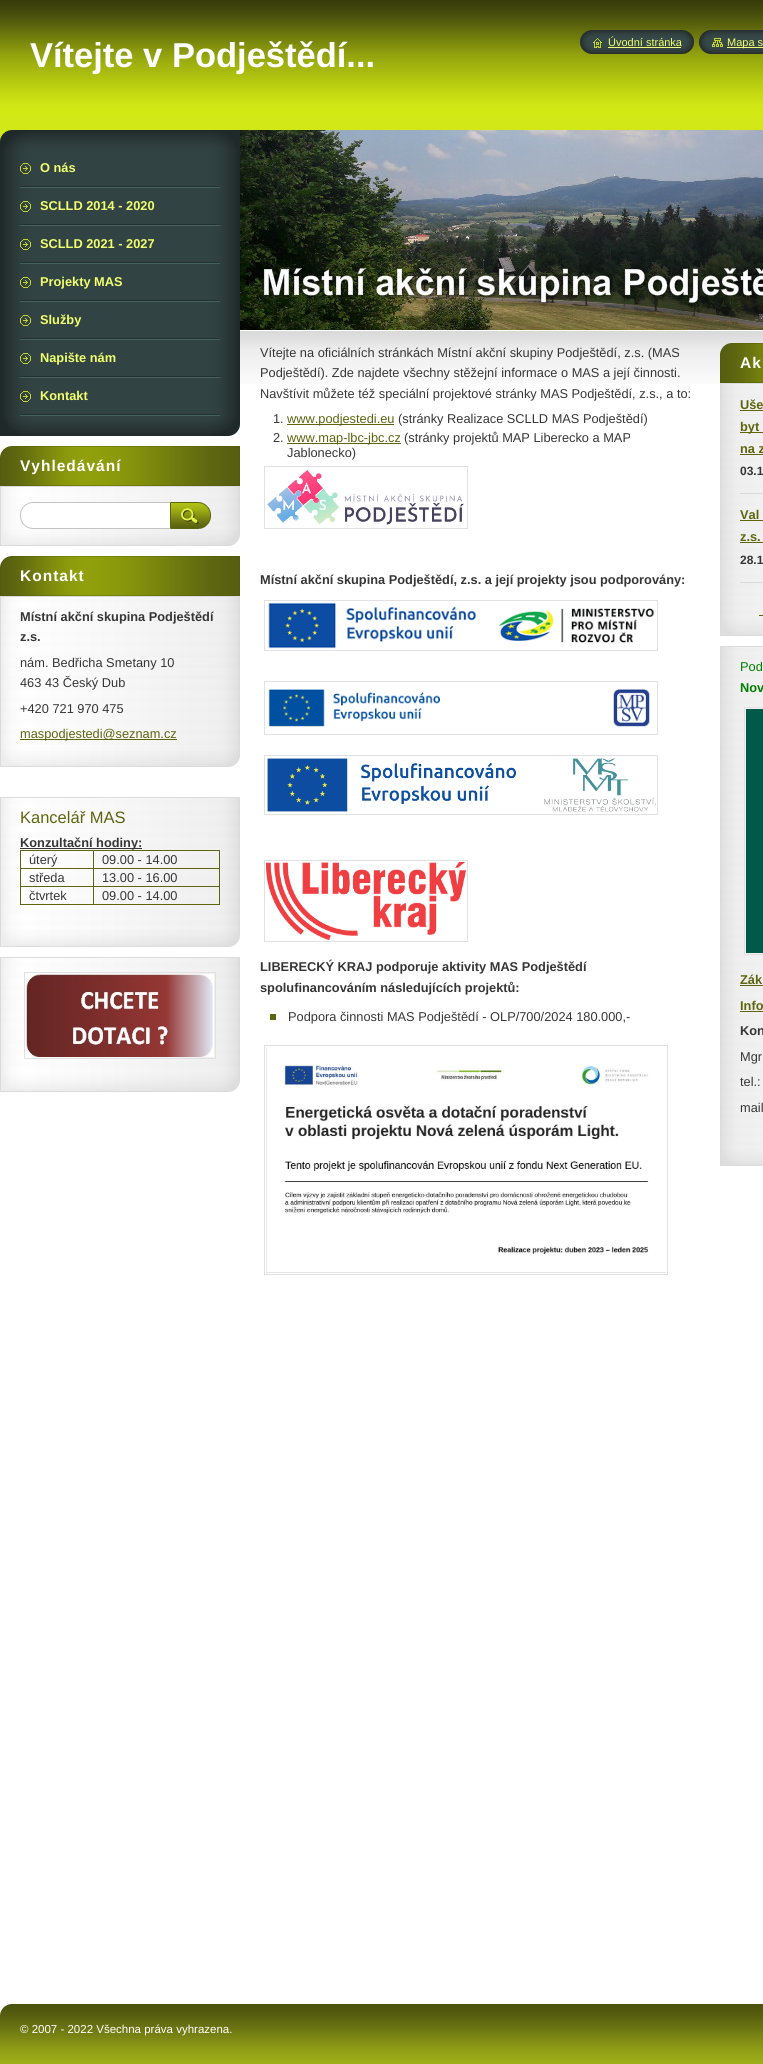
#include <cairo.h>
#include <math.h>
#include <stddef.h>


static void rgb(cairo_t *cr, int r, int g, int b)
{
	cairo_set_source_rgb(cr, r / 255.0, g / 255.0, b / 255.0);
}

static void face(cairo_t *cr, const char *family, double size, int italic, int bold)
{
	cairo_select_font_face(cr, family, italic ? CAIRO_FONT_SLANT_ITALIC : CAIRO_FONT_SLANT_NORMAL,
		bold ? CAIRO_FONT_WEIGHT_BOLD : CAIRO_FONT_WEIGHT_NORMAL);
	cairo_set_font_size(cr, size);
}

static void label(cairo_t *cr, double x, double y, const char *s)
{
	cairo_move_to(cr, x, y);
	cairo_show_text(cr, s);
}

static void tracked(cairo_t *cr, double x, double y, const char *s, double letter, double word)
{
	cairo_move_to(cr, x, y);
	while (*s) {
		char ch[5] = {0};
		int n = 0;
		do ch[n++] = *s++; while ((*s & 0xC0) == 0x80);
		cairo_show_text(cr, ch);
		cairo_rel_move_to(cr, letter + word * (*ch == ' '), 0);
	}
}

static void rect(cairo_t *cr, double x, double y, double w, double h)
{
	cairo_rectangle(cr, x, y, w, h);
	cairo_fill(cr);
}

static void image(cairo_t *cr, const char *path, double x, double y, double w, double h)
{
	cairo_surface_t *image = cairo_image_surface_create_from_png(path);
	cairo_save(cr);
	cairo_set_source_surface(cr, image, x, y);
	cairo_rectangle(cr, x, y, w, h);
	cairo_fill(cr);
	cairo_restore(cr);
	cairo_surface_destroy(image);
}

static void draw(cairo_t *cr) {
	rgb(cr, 255, 255, 255);
	cairo_paint(cr);
	image(cr, "image0.png", 0, 0, 763, 384);
	face(cr, "Liberation Sans", 34.5, 0, 1);
	rgb(cr, 255, 255, 255);
	label(cr, 30, 67, "Vítejte v Podještědí...");
	image(cr, "image1.png", 580, 30, 13, 24);
	image(cr, "image2.png", 593, 30, 101, 24);
	image(cr, "image3.png", 593, 38, 9, 10);
	face(cr, "Liberation Sans", 11, 0, 0);
	rgb(cr, 240, 255, 109);
	label(cr, 608, 46, "Úvodní stránka");
	rect(cr, 608, 47, 73, 1);
	image(cr, "image1.png", 699, 30, 13, 24);
	image(cr, "image4.png", 712, 30, 51, 24);
	image(cr, "image5.png", 712, 38, 11, 9);
	rect(cr, 727, 47, 36, 1);
	label(cr, 727, 46, "Mapa s");
	image(cr, "image6.png", 0, 130, 240, 20);
	image(cr, "image7.png", 0, 416, 240, 20);
	image(cr, "image8.png", 0, 150, 240, 266);
	image(cr, "image9.png", 20, 186, 200, 2);
	image(cr, "image10.png", 20, 163, 11, 11);
	face(cr, "Liberation Sans", 12.8, 0, 1);
	label(cr, 40, 172, "O nás");
	image(cr, "image9.png", 20, 224, 200, 2);
	image(cr, "image10.png", 20, 201, 11, 11);
	label(cr, 40, 210, "SCLLD 2014 - 2020");
	image(cr, "image9.png", 20, 262, 200, 2);
	image(cr, "image10.png", 20, 239, 11, 11);
	label(cr, 40, 248, "SCLLD 2021 - 2027");
	image(cr, "image9.png", 20, 300, 200, 2);
	image(cr, "image10.png", 20, 277, 11, 11);
	label(cr, 40, 286, "Projekty MAS");
	image(cr, "image9.png", 20, 338, 200, 2);
	image(cr, "image10.png", 20, 315, 11, 11);
	label(cr, 40, 324, "Služby");
	image(cr, "image9.png", 20, 376, 200, 2);
	image(cr, "image10.png", 20, 353, 11, 11);
	label(cr, 40, 362, "Napište nám");
	image(cr, "image9.png", 20, 414, 200, 2);
	image(cr, "image10.png", 20, 391, 11, 11);
	label(cr, 40, 400, "Kontakt");
	image(cr, "image11.png", 0, 529, 240, 17);
	image(cr, "image12.png", 0, 446, 240, 40);
	face(cr, "Liberation Sans", 15.5, 0, 1);
	rgb(cr, 255, 255, 255);
	tracked(cr, 20, 471, "Vyhledávání", 1, 0);
	image(cr, "image13.png", 0, 487, 240, 42);
	rgb(cr, 219, 219, 219);
	rect(cr, 0, 486, 240, 1);
	image(cr, "image14.png", 20, 502, 150, 27);
	image(cr, "image15.png", 170, 502, 41, 27);
	image(cr, "image11.png", 0, 750, 240, 17);
	image(cr, "image12.png", 0, 556, 240, 40);
	rgb(cr, 255, 255, 255);
	tracked(cr, 20, 581, "Kontakt", 1, 0);
	image(cr, "image16.png", 0, 597, 240, 153);
	rgb(cr, 219, 219, 219);
	rect(cr, 0, 596, 240, 1);
	face(cr, "Liberation Sans", 12.8, 0, 1);
	rgb(cr, 54, 54, 54);
	label(cr, 20, 621, "Místní akční skupina Podještědí");
	label(cr, 20, 641, "z.s.");
	face(cr, "Liberation Sans", 12.8, 0, 0);
	label(cr, 20, 667, "nám. Bedřicha Smetany 10");
	label(cr, 20, 687, "463 43 Český Dub");
	label(cr, 20, 713, "+420 721 970 475");
	rgb(cr, 93, 101, 14);
	rect(cr, 20, 739, 157, 1);
	label(cr, 20, 738, "maspodjestedi@seznam.cz");
	image(cr, "image11.png", 0, 930, 240, 17);
	image(cr, "image17.png", 0, 798, 240, 132);
	rgb(cr, 219, 219, 219);
	rect(cr, 0, 797, 240, 1);
	face(cr, "Liberation Sans", 16.5, 0, 0);
	rgb(cr, 93, 101, 14);
	label(cr, 20, 823, "Kancelář MAS");
	rgb(cr, 54, 54, 54);
	rect(cr, 20, 848, 122, 1);
	face(cr, "Liberation Sans", 12.8, 0, 1);
	label(cr, 20, 847, "Konzultační hodiny:");
	rgb(cr, 93, 101, 14);
	rect(cr, 93, 850, 127, 1);
	rect(cr, 93, 868, 127, 1);
	rect(cr, 93, 886, 127, 1);
	rect(cr, 219, 886, 1, 19);
	rect(cr, 93, 904, 127, 1);
	rect(cr, 93, 886, 1, 19);
	rect(cr, 20, 886, 74, 1);
	rect(cr, 93, 868, 1, 19);
	rect(cr, 20, 868, 74, 1);
	rect(cr, 93, 850, 1, 19);
	rect(cr, 20, 850, 74, 1);
	rect(cr, 20, 904, 74, 1);
	rect(cr, 20, 886, 1, 19);
	rect(cr, 20, 868, 1, 19);
	rect(cr, 20, 850, 1, 19);
	face(cr, "Liberation Sans", 12.8, 0, 0);
	rgb(cr, 54, 54, 54);
	label(cr, 29, 864, "úterý");
	rgb(cr, 93, 101, 14);
	rect(cr, 219, 868, 1, 19);
	rect(cr, 219, 850, 1, 19);
	rgb(cr, 54, 54, 54);
	label(cr, 102, 864, "09.00 - 14.00");
	label(cr, 29, 882, "středa");
	label(cr, 102, 882, "13.00 - 16.00");
	label(cr, 29, 900, "čtvrtek");
	label(cr, 102, 900, "09.00 - 14.00");
	image(cr, "image11.png", 0, 1075, 240, 17);
	image(cr, "image18.png", 0, 958, 240, 117);
	rgb(cr, 219, 219, 219);
	rect(cr, 0, 957, 240, 1);
	cairo_rectangle(cr, 24.5, 972.5, 191, 86);
	rgb(cr, 225, 225, 225);
	cairo_set_line_width(cr, 1);
	cairo_stroke(cr);
	image(cr, "image19.png", 26, 974, 188, 83);
	image(cr, "image20.png", 240, 130, 523, 200);
	rgb(cr, 54, 54, 54);
	label(cr, 260, 357, "Vítejte na oficiálních stránkách Místní akční skupiny Podještědí, z.s. (MAS");
	label(cr, 260, 377, "Podještědí). Zde najdete všechny stěžejní informace o MAS a její činnosti.");
	label(cr, 260, 398, "Navštívit můžete též speciální projektové stránky MAS Podještědí, z.s., a to:");
	label(cr, 273, 423, "1.");
	rgb(cr, 93, 101, 14);
	rect(cr, 287, 424, 107, 1);
	label(cr, 287, 423, "www.podjestedi.eu");
	rgb(cr, 54, 54, 54);
	label(cr, 398, 423, "(stránky Realizace SCLLD MAS Podještědí)");
	label(cr, 273, 442, "2.");
	rgb(cr, 93, 101, 14);
	rect(cr, 287, 443, 114, 1);
	label(cr, 287, 442, "www.map-lbc-jbc.cz");
	rgb(cr, 54, 54, 54);
	label(cr, 404, 442, "(stránky projektů MAP Liberecko a MAP");
	label(cr, 287, 457, "Jablonecko)");
	cairo_rectangle(cr, 264.5, 466.5, 203, 62);
	rgb(cr, 225, 225, 225);
	cairo_stroke(cr);
	image(cr, "image21.png", 267, 470, 197, 55);
	face(cr, "Liberation Sans", 12.8, 0, 1);
	rgb(cr, 54, 54, 54);
	label(cr, 260, 584, "Místní akční skupina Podještědí, z.s. a její projekty jsou podporovány:");
	cairo_rectangle(cr, 264.5, 600.5, 393, 50);
	rgb(cr, 225, 225, 225);
	cairo_stroke(cr);
	image(cr, "image22.png", 268, 602, 387, 47);
	cairo_rectangle(cr, 264.5, 681.5, 393, 53);
	cairo_stroke(cr);
	image(cr, "image23.png", 268, 689, 382, 38);
	cairo_rectangle(cr, 264.5, 755.5, 393, 59);
	cairo_stroke(cr);
	image(cr, "image24.png", 267, 758, 389, 54);
	cairo_rectangle(cr, 264.5, 860.5, 203, 81);
	cairo_stroke(cr);
	image(cr, "image25.png", 266, 862, 200, 78);
	rgb(cr, 54, 54, 54);
	label(cr, 260, 971, "LIBERECKÝ KRAJ podporuje aktivity MAS Podještědí");
	label(cr, 260, 992, "spolufinancováním následujících projektů:");
	rgb(cr, 93, 101, 14);
	rect(cr, 270, 1014, 6, 6);
	face(cr, "Liberation Sans", 12.8, 0, 0);
	rgb(cr, 54, 54, 54);
	label(cr, 288, 1021, "Podpora činnosti MAS Podještědí - OLP/700/2024 180.000,-");
	cairo_rectangle(cr, 264.5, 1045.5, 403, 229);
	rgb(cr, 225, 225, 225);
	cairo_stroke(cr);
	image(cr, "image26.png", 266, 1047, 400, 226);
	image(cr, "image27.png", 720, 619, 43, 17);
	image(cr, "image28.png", 720, 343, 43, 40);
	face(cr, "Liberation Sans", 15.5, 0, 1);
	rgb(cr, 255, 255, 255);
	tracked(cr, 740, 368, "Ak", 1, 0);
	image(cr, "image29.png", 720, 384, 43, 235);
	rgb(cr, 219, 219, 219);
	rect(cr, 720, 383, 43, 1);
	rgb(cr, 217, 217, 217);
	rect(cr, 740, 493, 23, 1);
	face(cr, "Liberation Sans", 12.8, 0, 1);
	rgb(cr, 93, 101, 14);
	label(cr, 740, 409, "Uše");
	rect(cr, 740, 410, 23, 1);
	rect(cr, 740, 432, 23, 1);
	label(cr, 740, 431, "byt");
	label(cr, 740, 453, "na z");
	rect(cr, 740, 454, 23, 1);
	face(cr, "Liberation Sans", 12, 0, 1);
	rgb(cr, 54, 54, 54);
	label(cr, 740, 475, "03.1");
	rgb(cr, 217, 217, 217);
	rect(cr, 740, 582, 23, 1);
	face(cr, "Liberation Sans", 12.8, 0, 1);
	rgb(cr, 93, 101, 14);
	label(cr, 740, 519, "Val");
	rect(cr, 740, 520, 23, 1);
	label(cr, 740, 541, "z.s.");
	rect(cr, 740, 542, 23, 1);
	face(cr, "Liberation Sans", 12, 0, 1);
	rgb(cr, 54, 54, 54);
	label(cr, 740, 564, "28.1");
	rgb(cr, 93, 101, 14);
	rect(cr, 759, 615, 4, 1);
	image(cr, "image27.png", 720, 1149, 43, 17);
	image(cr, "image30.png", 720, 647, 43, 502);
	rgb(cr, 219, 219, 219);
	rect(cr, 720, 646, 43, 1);
	face(cr, "Liberation Sans", 12.8, 0, 0);
	rgb(cr, 0, 128, 0);
	label(cr, 740, 671, "Pod");
	face(cr, "Liberation Sans", 12.8, 0, 1);
	label(cr, 740, 692, "Nov");
	cairo_rectangle(cr, 744.5, 707.5, 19, 247);
	rgb(cr, 225, 225, 225);
	cairo_stroke(cr);
	rgb(cr, 0, 89, 73);
	rect(cr, 746, 709, 17, 244);
	rgb(cr, 93, 101, 14);
	label(cr, 740, 984, "Zák");
	rect(cr, 740, 985, 23, 1);
	label(cr, 740, 1010, "Info");
	rect(cr, 740, 1011, 23, 1);
	rgb(cr, 54, 54, 54);
	label(cr, 740, 1035, "Kon");
	face(cr, "Liberation Sans", 12.8, 0, 0);
	label(cr, 740, 1061, "Mgr");
	label(cr, 740, 1086, "tel.:");
	label(cr, 740, 1112, "mail");
	image(cr, "image31.png", 0, 2004, 763, 60);
	face(cr, "Liberation Sans", 11.5, 0, 0);
	rgb(cr, 255, 255, 255);
	label(cr, 20, 2033, "© 2007 - 2022 Všechna práva vyhrazena.");
}

int main(void) {
	cairo_surface_t *surface = cairo_image_surface_create(CAIRO_FORMAT_RGB24, 763, 2064);
	cairo_t *cr = cairo_create(surface);
	cairo_font_options_t *options = cairo_font_options_create();
	cairo_font_options_set_hint_metrics(options, CAIRO_HINT_METRICS_OFF);
	cairo_font_options_set_hint_style(options, CAIRO_HINT_STYLE_NONE);
	cairo_set_font_options(cr, options);
	cairo_set_miter_limit(cr, 4);
	draw(cr);
	cairo_surface_write_to_png(surface, "render.png");
	cairo_font_options_destroy(options);
	cairo_destroy(cr);
	cairo_surface_destroy(surface);
	return 0;
}
